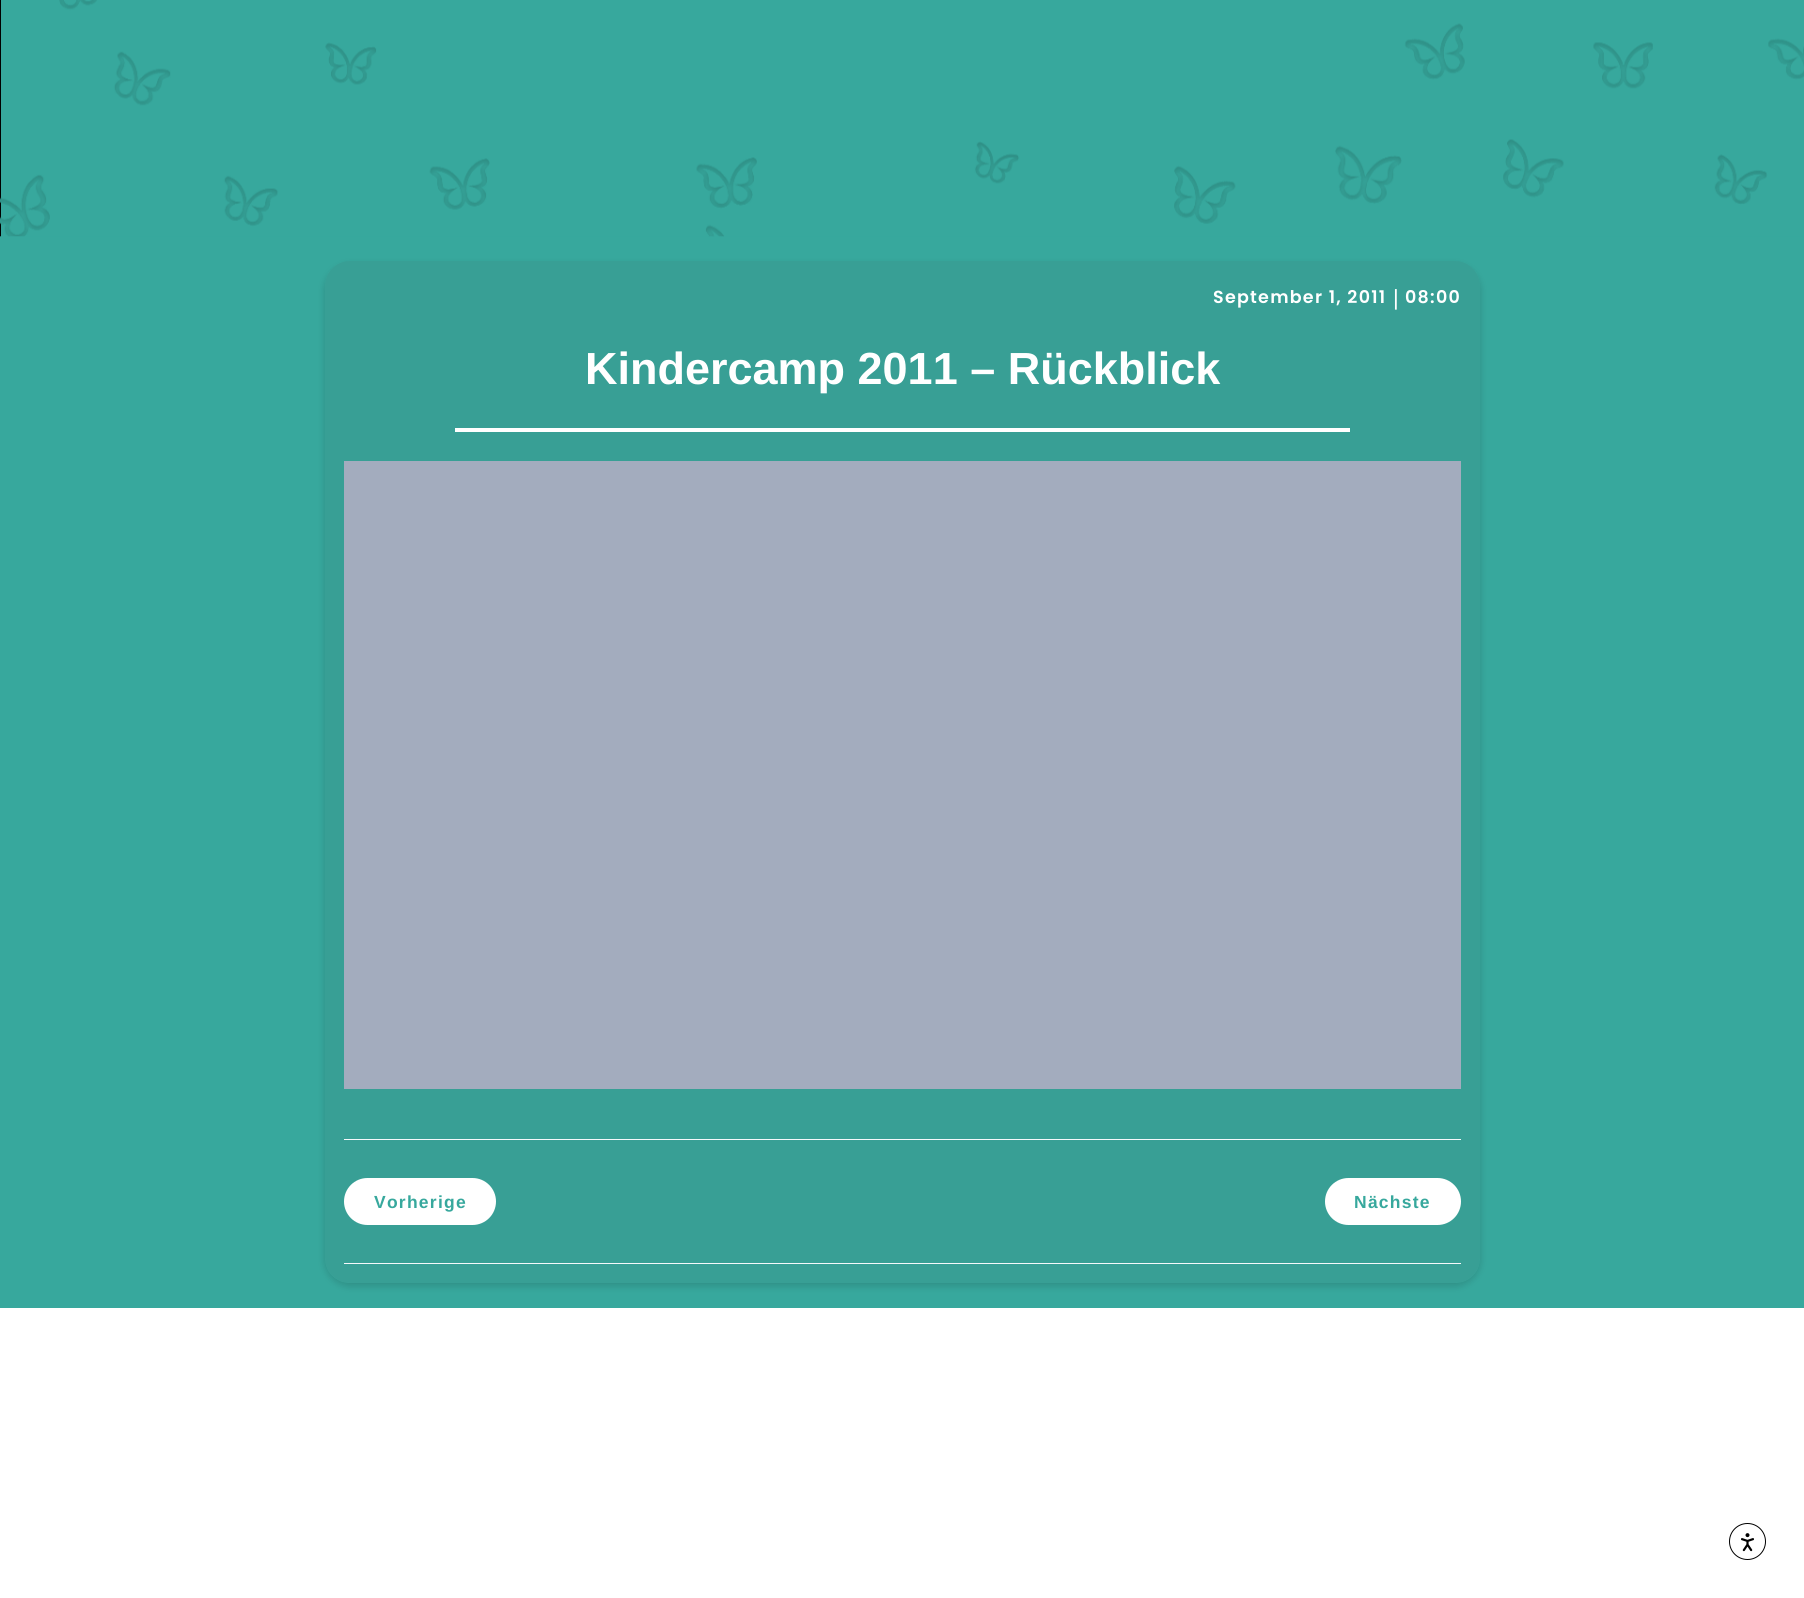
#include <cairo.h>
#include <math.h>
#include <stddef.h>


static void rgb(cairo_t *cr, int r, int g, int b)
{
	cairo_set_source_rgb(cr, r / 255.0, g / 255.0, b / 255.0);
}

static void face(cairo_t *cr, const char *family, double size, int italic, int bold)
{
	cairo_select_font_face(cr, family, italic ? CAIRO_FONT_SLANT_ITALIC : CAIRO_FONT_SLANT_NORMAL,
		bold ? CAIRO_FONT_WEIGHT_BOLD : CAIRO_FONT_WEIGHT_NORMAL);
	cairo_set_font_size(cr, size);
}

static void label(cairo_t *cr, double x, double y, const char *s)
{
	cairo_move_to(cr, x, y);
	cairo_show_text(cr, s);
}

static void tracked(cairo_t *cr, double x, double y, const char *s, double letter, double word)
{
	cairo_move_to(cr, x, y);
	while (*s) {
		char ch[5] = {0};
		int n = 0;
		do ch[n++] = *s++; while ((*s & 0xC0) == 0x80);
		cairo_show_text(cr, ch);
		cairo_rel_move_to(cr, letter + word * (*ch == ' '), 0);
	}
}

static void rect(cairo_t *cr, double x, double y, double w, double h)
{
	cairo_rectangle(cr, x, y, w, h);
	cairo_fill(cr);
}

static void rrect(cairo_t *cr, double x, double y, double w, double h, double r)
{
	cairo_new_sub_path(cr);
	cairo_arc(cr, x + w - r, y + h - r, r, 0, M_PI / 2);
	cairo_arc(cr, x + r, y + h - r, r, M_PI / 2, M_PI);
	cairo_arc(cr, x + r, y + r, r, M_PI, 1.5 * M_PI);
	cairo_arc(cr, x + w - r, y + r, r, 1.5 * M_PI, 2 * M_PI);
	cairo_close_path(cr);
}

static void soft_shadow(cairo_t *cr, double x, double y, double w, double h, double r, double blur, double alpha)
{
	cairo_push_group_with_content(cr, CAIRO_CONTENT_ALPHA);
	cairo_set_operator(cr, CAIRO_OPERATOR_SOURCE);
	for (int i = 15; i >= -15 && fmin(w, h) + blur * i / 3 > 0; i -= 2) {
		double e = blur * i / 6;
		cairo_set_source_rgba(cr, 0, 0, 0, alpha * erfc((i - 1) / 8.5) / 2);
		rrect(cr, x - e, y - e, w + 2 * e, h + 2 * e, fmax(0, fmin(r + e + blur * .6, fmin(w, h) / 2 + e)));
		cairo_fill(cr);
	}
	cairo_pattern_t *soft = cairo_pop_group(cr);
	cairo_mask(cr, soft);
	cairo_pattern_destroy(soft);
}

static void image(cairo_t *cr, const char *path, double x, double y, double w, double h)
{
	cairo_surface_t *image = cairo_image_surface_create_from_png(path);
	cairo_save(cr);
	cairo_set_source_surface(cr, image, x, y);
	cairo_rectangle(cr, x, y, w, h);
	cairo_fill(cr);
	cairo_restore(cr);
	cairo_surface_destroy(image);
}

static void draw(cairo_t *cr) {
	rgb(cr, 255, 255, 255);
	cairo_paint(cr);
	rgb(cr, 55, 168, 157);
	rect(cr, 0, 236, 1804, 1072);
	image(cr, "image0.png", 0, 0, 1804, 237);
	cairo_save(cr);
	cairo_set_fill_rule(cr, CAIRO_FILL_RULE_EVEN_ODD);
	cairo_new_path(cr);
	cairo_move_to(cr, 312, 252);
	cairo_line_to(cr, 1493, 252);
	cairo_line_to(cr, 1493, 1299);
	cairo_line_to(cr, 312, 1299);
	cairo_close_path(cr);
	cairo_move_to(cr, 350, 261);
	cairo_line_to(cr, 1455, 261);
	cairo_curve_to(cr, 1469, 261, 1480, 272, 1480, 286);
	cairo_line_to(cr, 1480, 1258);
	cairo_curve_to(cr, 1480, 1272, 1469, 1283, 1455, 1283);
	cairo_line_to(cr, 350, 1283);
	cairo_curve_to(cr, 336, 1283, 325, 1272, 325, 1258);
	cairo_line_to(cr, 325, 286);
	cairo_curve_to(cr, 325, 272, 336, 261, 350, 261);
	cairo_close_path(cr);
	cairo_clip(cr);
	rgb(cr, 0, 0, 0);
	soft_shadow(cr, 325, 265, 1155, 1021, 25, 4, 0.16);
	cairo_restore(cr);
	cairo_set_source_rgba(cr, 0.278, 0.275, 0.275, 0.09);
	rrect(cr, 325, 261, 1155, 1022, 25);
	cairo_fill(cr);
	face(cr, "Poppins SemiBold", 17.5, 0, 0);
	rgb(cr, 255, 255, 255);
	tracked(cr, 1213, 303, "September 1, 2011", 1.25, 0);
	face(cr, "Liberation Sans", 22, 0, 0);
	label(cr, 1393, 305, "|");
	face(cr, "Poppins SemiBold", 17.5, 0, 0);
	tracked(cr, 1405, 303, "08:00", 1.25, 0);
	face(cr, "Liberation Sans", 45, 0, 1);
	label(cr, 585, 384, "Kindercamp 2011 – Rückblick");
	rect(cr, 455, 428, 895, 4);
	rgb(cr, 163, 172, 190);
	rect(cr, 344, 461, 1117, 628);
	rgb(cr, 245, 248, 251);
	rect(cr, 344, 1139, 1117, 1);
	rect(cr, 344, 1263, 1117, 1);
	rgb(cr, 255, 255, 255);
	rrect(cr, 344, 1178, 152, 47, 23.5);
	cairo_fill(cr);
	face(cr, "Liberation Sans", 17.5, 0, 1);
	rgb(cr, 55, 168, 157);
	tracked(cr, 374, 1208, "Vorherige", 1.25, 0);
	rgb(cr, 255, 255, 255);
	rrect(cr, 1325, 1178, 136, 47, 23.5);
	cairo_fill(cr);
	rgb(cr, 55, 168, 157);
	tracked(cr, 1354, 1208, "Nächste", 1.25, 0);
	cairo_new_path(cr);
	cairo_arc(cr, 1747.5, 1541.5, 18, 0, 2 * M_PI);
	rgb(cr, 0, 0, 0);
	cairo_set_line_width(cr, 1);
	cairo_stroke(cr);
	image(cr, "image1.png", 1741, 1533, 13, 19);
}

int main(void) {
	cairo_surface_t *surface = cairo_image_surface_create(CAIRO_FORMAT_RGB24, 1804, 1598);
	cairo_t *cr = cairo_create(surface);
	cairo_font_options_t *options = cairo_font_options_create();
	cairo_font_options_set_hint_metrics(options, CAIRO_HINT_METRICS_OFF);
	cairo_font_options_set_hint_style(options, CAIRO_HINT_STYLE_NONE);
	cairo_set_font_options(cr, options);
	cairo_set_miter_limit(cr, 4);
	draw(cr);
	cairo_surface_write_to_png(surface, "render.png");
	cairo_font_options_destroy(options);
	cairo_destroy(cr);
	cairo_surface_destroy(surface);
	return 0;
}
